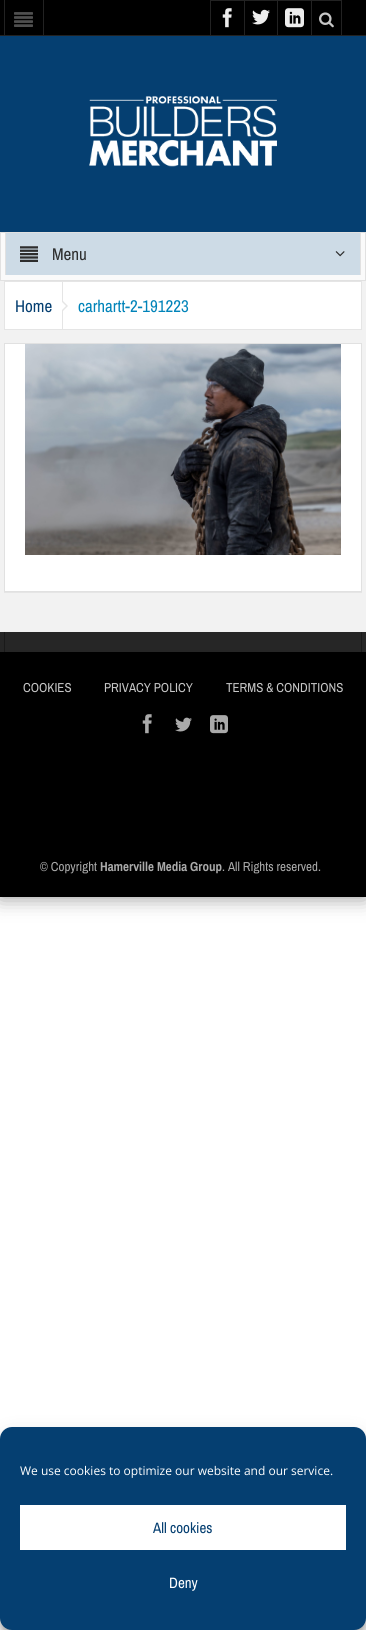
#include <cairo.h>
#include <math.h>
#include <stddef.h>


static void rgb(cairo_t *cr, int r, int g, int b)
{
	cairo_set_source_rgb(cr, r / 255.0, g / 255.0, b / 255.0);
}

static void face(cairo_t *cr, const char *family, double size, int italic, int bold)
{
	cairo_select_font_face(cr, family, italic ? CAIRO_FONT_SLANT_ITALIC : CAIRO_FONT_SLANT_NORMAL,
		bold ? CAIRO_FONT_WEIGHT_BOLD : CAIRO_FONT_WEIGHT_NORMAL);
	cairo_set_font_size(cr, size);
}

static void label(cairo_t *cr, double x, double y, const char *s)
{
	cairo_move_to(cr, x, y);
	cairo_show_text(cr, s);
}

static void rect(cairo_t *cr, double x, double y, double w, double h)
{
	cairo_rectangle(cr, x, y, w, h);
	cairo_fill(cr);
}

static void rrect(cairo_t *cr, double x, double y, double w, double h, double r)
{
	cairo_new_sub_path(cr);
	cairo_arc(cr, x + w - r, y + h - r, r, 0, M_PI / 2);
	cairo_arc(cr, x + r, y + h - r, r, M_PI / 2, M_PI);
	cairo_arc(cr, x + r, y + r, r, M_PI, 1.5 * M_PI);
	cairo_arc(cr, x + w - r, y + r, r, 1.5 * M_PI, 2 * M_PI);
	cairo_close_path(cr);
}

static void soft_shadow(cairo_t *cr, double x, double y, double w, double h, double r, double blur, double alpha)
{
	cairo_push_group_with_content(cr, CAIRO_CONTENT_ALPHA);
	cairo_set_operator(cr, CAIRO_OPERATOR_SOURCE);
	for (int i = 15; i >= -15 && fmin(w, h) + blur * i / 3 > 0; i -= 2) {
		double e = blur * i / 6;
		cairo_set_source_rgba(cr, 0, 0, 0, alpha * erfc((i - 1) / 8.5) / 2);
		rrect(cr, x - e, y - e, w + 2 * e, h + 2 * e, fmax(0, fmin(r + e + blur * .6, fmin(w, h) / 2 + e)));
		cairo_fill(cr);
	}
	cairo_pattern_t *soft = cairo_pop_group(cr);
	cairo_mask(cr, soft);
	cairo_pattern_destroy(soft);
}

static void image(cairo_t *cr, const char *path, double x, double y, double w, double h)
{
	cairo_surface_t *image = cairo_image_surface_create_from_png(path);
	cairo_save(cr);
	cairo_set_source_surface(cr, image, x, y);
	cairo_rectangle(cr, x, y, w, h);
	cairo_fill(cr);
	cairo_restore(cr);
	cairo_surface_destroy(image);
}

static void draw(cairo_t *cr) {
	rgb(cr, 255, 255, 255);
	cairo_paint(cr);
	rgb(cr, 0, 0, 0);
	soft_shadow(cr, 0, 0, 366, 897, 0, 10.5, 0.44);
	rgb(cr, 242, 242, 242);
	rect(cr, 0, 281, 366, 351);
	rgb(cr, 0, 0, 0);
	rect(cr, 0, 0, 366, 35);
	rgb(cr, 34, 34, 34);
	rect(cr, 0, 35, 366, 1);
	rect(cr, 43, 0, 1, 35);
	rect(cr, 4, 0, 1, 35);
	image(cr, "image0.png", 14, 12, 19, 15);
	rect(cr, 210, 0, 132, 1);
	rect(cr, 210, 0, 1, 35);
	image(cr, "image1.png", 222, 8, 10, 20);
	rect(cr, 244, 0, 1, 35);
	image(cr, "image2.png", 252, 9, 18, 16);
	rect(cr, 277, 0, 1, 35);
	image(cr, "image3.png", 285, 8, 19, 20);
	rect(cr, 341, 0, 1, 35);
	rect(cr, 311, 0, 1, 35);
	image(cr, "image4.png", 319, 12, 15, 16);
	rgb(cr, 5, 63, 113);
	rect(cr, 0, 36, 366, 196);
	rgb(cr, 225, 225, 225);
	rect(cr, 0, 232, 366, 1);
	image(cr, "image5.png", 89, 96, 188, 71);
	rgb(cr, 250, 250, 250);
	rect(cr, 1, 233, 364, 47);
	rgb(cr, 225, 225, 225);
	rect(cr, 365, 233, 1, 48);
	rect(cr, 0, 280, 366, 1);
	rect(cr, 0, 233, 1, 48);
	rgb(cr, 205, 219, 230);
	rect(cr, 6, 233, 354, 42);
	rgb(cr, 225, 225, 225);
	rect(cr, 360, 233, 1, 42);
	rect(cr, 5, 233, 1, 42);
	image(cr, "image6.png", 20, 246, 18, 16);
	face(cr, "Archivo Narrow", 17, 0, 0);
	rgb(cr, 45, 45, 45);
	label(cr, 52, 260, "Menu");
	image(cr, "image7.png", 335, 251, 10, 6);
	rgb(cr, 255, 255, 255);
	cairo_rectangle(cr, 4.5, 281.5, 357, 48);
	cairo_fill_preserve(cr);
	rgb(cr, 229, 229, 229);
	cairo_set_line_width(cr, 1);
	cairo_stroke(cr);
	rect(cr, 62, 282, 1, 47);
	rgb(cr, 5, 63, 113);
	label(cr, 15, 312, "Home");
	rgb(cr, 229, 229, 229);
	cairo_new_path(cr);
	cairo_move_to(cr, 62, 312);
	cairo_line_to(cr, 62, 300);
	cairo_line_to(cr, 68, 306);
	cairo_close_path(cr);
	cairo_fill(cr);
	rgb(cr, 255, 255, 255);
	cairo_new_path(cr);
	cairo_move_to(cr, 62, 310);
	cairo_line_to(cr, 62, 302);
	cairo_line_to(cr, 66, 306);
	cairo_close_path(cr);
	cairo_fill(cr);
	rgb(cr, 0, 131, 185);
	label(cr, 78, 312, "carhartt-2-191223");
	rgb(cr, 229, 229, 229);
	rect(cr, 4, 592, 358, 1);
	rgb(cr, 255, 255, 255);
	cairo_rectangle(cr, 4.5, 343.5, 357, 248);
	cairo_fill_preserve(cr);
	rgb(cr, 225, 225, 225);
	cairo_stroke(cr);
	image(cr, "image8.png", 25, 344, 316, 211);
	rgb(cr, 38, 38, 38);
	rect(cr, 0, 632, 366, 20);
	rgb(cr, 26, 26, 26);
	rect(cr, 361, 632, 1, 20);
	rect(cr, 4, 632, 1, 20);
	rgb(cr, 0, 0, 0);
	rect(cr, 0, 652, 366, 245);
	face(cr, "Archivo Narrow", 13, 0, 0);
	rgb(cr, 198, 198, 198);
	label(cr, 23, 692, "COOKIES");
	label(cr, 104, 692, "PRIVACY POLICY");
	label(cr, 226, 692, "TERMS & CONDITIONS");
	image(cr, "image9.png", 142, 714, 10, 20);
	image(cr, "image10.png", 175, 717, 17, 15);
	image(cr, "image11.png", 210, 715, 18, 19);
	rgb(cr, 170, 170, 170);
	label(cr, 40, 871, "© Copyright");
	face(cr, "Archivo Narrow", 13, 0, 1);
	label(cr, 100, 871, "Hamerville Media Group");
	face(cr, "Archivo Narrow", 13, 0, 0);
	label(cr, 222, 871, ". All Rights reserved.");
	rgb(cr, 0, 0, 0);
	soft_shadow(cr, 0, 1433, 366, 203, 12, 3, 0.23);
	soft_shadow(cr, 0, 1437, 366, 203, 12, 10, 0.19);
	rgb(cr, 5, 63, 113);
	rrect(cr, 0, 1427, 366, 203, 12);
	cairo_fill(cr);
	face(cr, "Open Sans", 12, 0, 0);
	rgb(cr, 255, 255, 255);
	label(cr, 20, 1475, "We use cookies to optimize our website and our service.");
	rect(cr, 20, 1505, 326, 45);
	face(cr, "Archivo Narrow", 15, 0, 0);
	rgb(cr, 5, 63, 113);
	label(cr, 153, 1533, "All cookies");
	rgb(cr, 255, 255, 255);
	label(cr, 169, 1588, "Deny");
}

int main(void) {
	cairo_surface_t *surface = cairo_image_surface_create(CAIRO_FORMAT_RGB24, 366, 1630);
	cairo_t *cr = cairo_create(surface);
	cairo_font_options_t *options = cairo_font_options_create();
	cairo_font_options_set_hint_metrics(options, CAIRO_HINT_METRICS_OFF);
	cairo_font_options_set_hint_style(options, CAIRO_HINT_STYLE_NONE);
	cairo_set_font_options(cr, options);
	cairo_set_miter_limit(cr, 4);
	draw(cr);
	cairo_surface_write_to_png(surface, "render.png");
	cairo_font_options_destroy(options);
	cairo_destroy(cr);
	cairo_surface_destroy(surface);
	return 0;
}
